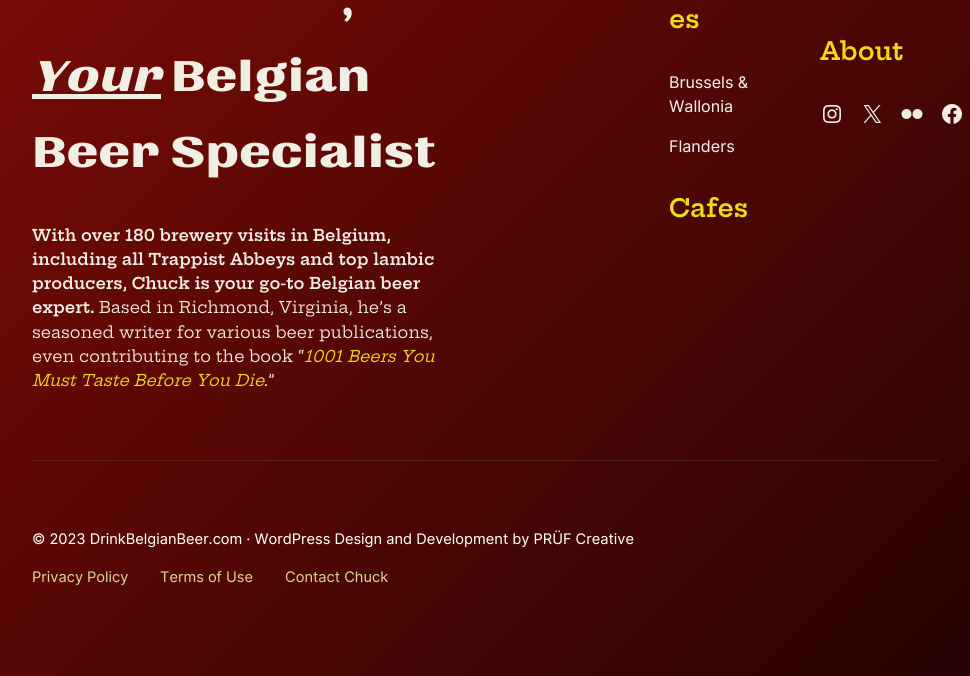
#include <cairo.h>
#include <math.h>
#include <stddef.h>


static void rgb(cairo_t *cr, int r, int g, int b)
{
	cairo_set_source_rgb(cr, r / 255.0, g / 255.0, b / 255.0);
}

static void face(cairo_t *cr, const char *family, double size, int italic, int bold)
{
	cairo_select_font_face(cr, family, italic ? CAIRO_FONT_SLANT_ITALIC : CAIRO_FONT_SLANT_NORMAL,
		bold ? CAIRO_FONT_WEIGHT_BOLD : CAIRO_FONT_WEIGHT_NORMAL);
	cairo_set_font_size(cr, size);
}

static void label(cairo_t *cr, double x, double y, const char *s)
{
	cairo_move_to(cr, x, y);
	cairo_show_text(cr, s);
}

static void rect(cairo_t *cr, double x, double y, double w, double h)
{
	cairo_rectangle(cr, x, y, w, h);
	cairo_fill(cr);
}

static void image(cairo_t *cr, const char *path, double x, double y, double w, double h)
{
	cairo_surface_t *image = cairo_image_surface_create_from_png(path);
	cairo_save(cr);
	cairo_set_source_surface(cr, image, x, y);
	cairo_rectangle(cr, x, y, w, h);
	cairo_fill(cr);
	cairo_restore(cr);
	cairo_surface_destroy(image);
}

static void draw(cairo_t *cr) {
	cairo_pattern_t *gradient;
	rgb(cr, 255, 255, 255);
	cairo_paint(cr);
	gradient = cairo_pattern_create_linear(43, -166, 928, 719);
	cairo_pattern_add_color_stop_rgba(gradient, 0, 0.49, 0.043, 0.024, 1);
	cairo_pattern_add_color_stop_rgba(gradient, 1, 0.153, 0.012, 0.012, 1);
	cairo_set_source(cr, gradient);
	cairo_pattern_destroy(gradient);
	rect(cr, 0, 0, 970, 676);
	gradient = cairo_pattern_create_linear(43, -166, 928, 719);
	cairo_pattern_add_color_stop_rgba(gradient, 0, 0.439, 0.145, 0.094, 1);
	cairo_pattern_add_color_stop_rgba(gradient, 1, 0.235, 0.129, 0.086, 1);
	cairo_set_source(cr, gradient);
	cairo_pattern_destroy(gradient);
	rect(cr, 32, 460, 906, 1);
	face(cr, "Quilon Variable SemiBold", 50.75, 0, 0);
	rgb(cr, 241, 238, 228);
	label(cr, 342, 15, ",");
	face(cr, "Quilon Variable SemiBold", 50.75, 1, 0);
	label(cr, 32, 91, "Your");
	rect(cr, 32, 94, 129, 5);
	face(cr, "Quilon Variable SemiBold", 50.75, 0, 0);
	label(cr, 171, 91, "Belgian");
	label(cr, 32, 167, "Beer Specialist");
	face(cr, "Hepta Slab SemiBold", 16.05, 0, 0);
	label(cr, 32, 241, "With over 180 brewery visits in Belgium,");
	label(cr, 32, 265, "including all Trappist Abbeys and top lambic");
	label(cr, 32, 289, "producers, Chuck is your go-to Belgian beer");
	label(cr, 32, 313, "expert.");
	face(cr, "Hepta Slab", 16.05, 0, 0);
	label(cr, 99, 313, "Based in Richmond, Virginia, he’s a");
	label(cr, 32, 338, "seasoned writer for various beer publications,");
	label(cr, 32, 362, "even contributing to the book “");
	face(cr, "Hepta Slab", 16.05, 1, 0);
	rgb(cr, 237, 219, 19);
	label(cr, 304, 362, "1001 Beers You");
	label(cr, 32, 386, "Must Taste Before You Die");
	face(cr, "Hepta Slab", 16.05, 0, 0);
	rgb(cr, 241, 238, 228);
	label(cr, 264, 386, ".”");
	face(cr, "Hepta Slab SemiBold", 25, 0, 0);
	rgb(cr, 237, 219, 19);
	label(cr, 669, 28, "es");
	face(cr, "Inter", 16.05, 0, 0);
	rgb(cr, 241, 238, 228);
	label(cr, 669, 88, "Brussels &");
	label(cr, 669, 112, "Wallonia");
	label(cr, 669, 152, "Flanders");
	face(cr, "Hepta Slab SemiBold", 25, 0, 0);
	rgb(cr, 237, 219, 19);
	label(cr, 669, 217, "Cafes");
	label(cr, 820, 60, "About");
	image(cr, "image0.png", 823, 105, 18, 18);
	image(cr, "image1.png", 863, 105, 18, 18);
	image(cr, "image2.png", 901, 109, 22, 10);
	image(cr, "image3.png", 942, 104, 20, 20);
	face(cr, "Inter", 14.6, 0, 0);
	rgb(cr, 255, 255, 241);
	label(cr, 32, 544, "© 2023 DrinkBelgianBeer.com · WordPress Design and Development by PRÜF Creative");
	rgb(cr, 219, 209, 143);
	label(cr, 32, 582, "Privacy Policy");
	label(cr, 160, 582, "Terms of Use");
	label(cr, 285, 582, "Contact Chuck");
}

int main(void) {
	cairo_surface_t *surface = cairo_image_surface_create(CAIRO_FORMAT_RGB24, 970, 676);
	cairo_t *cr = cairo_create(surface);
	cairo_font_options_t *options = cairo_font_options_create();
	cairo_font_options_set_hint_metrics(options, CAIRO_HINT_METRICS_OFF);
	cairo_font_options_set_hint_style(options, CAIRO_HINT_STYLE_NONE);
	cairo_set_font_options(cr, options);
	cairo_set_miter_limit(cr, 4);
	draw(cr);
	cairo_surface_write_to_png(surface, "render.png");
	cairo_font_options_destroy(options);
	cairo_destroy(cr);
	cairo_surface_destroy(surface);
	return 0;
}
